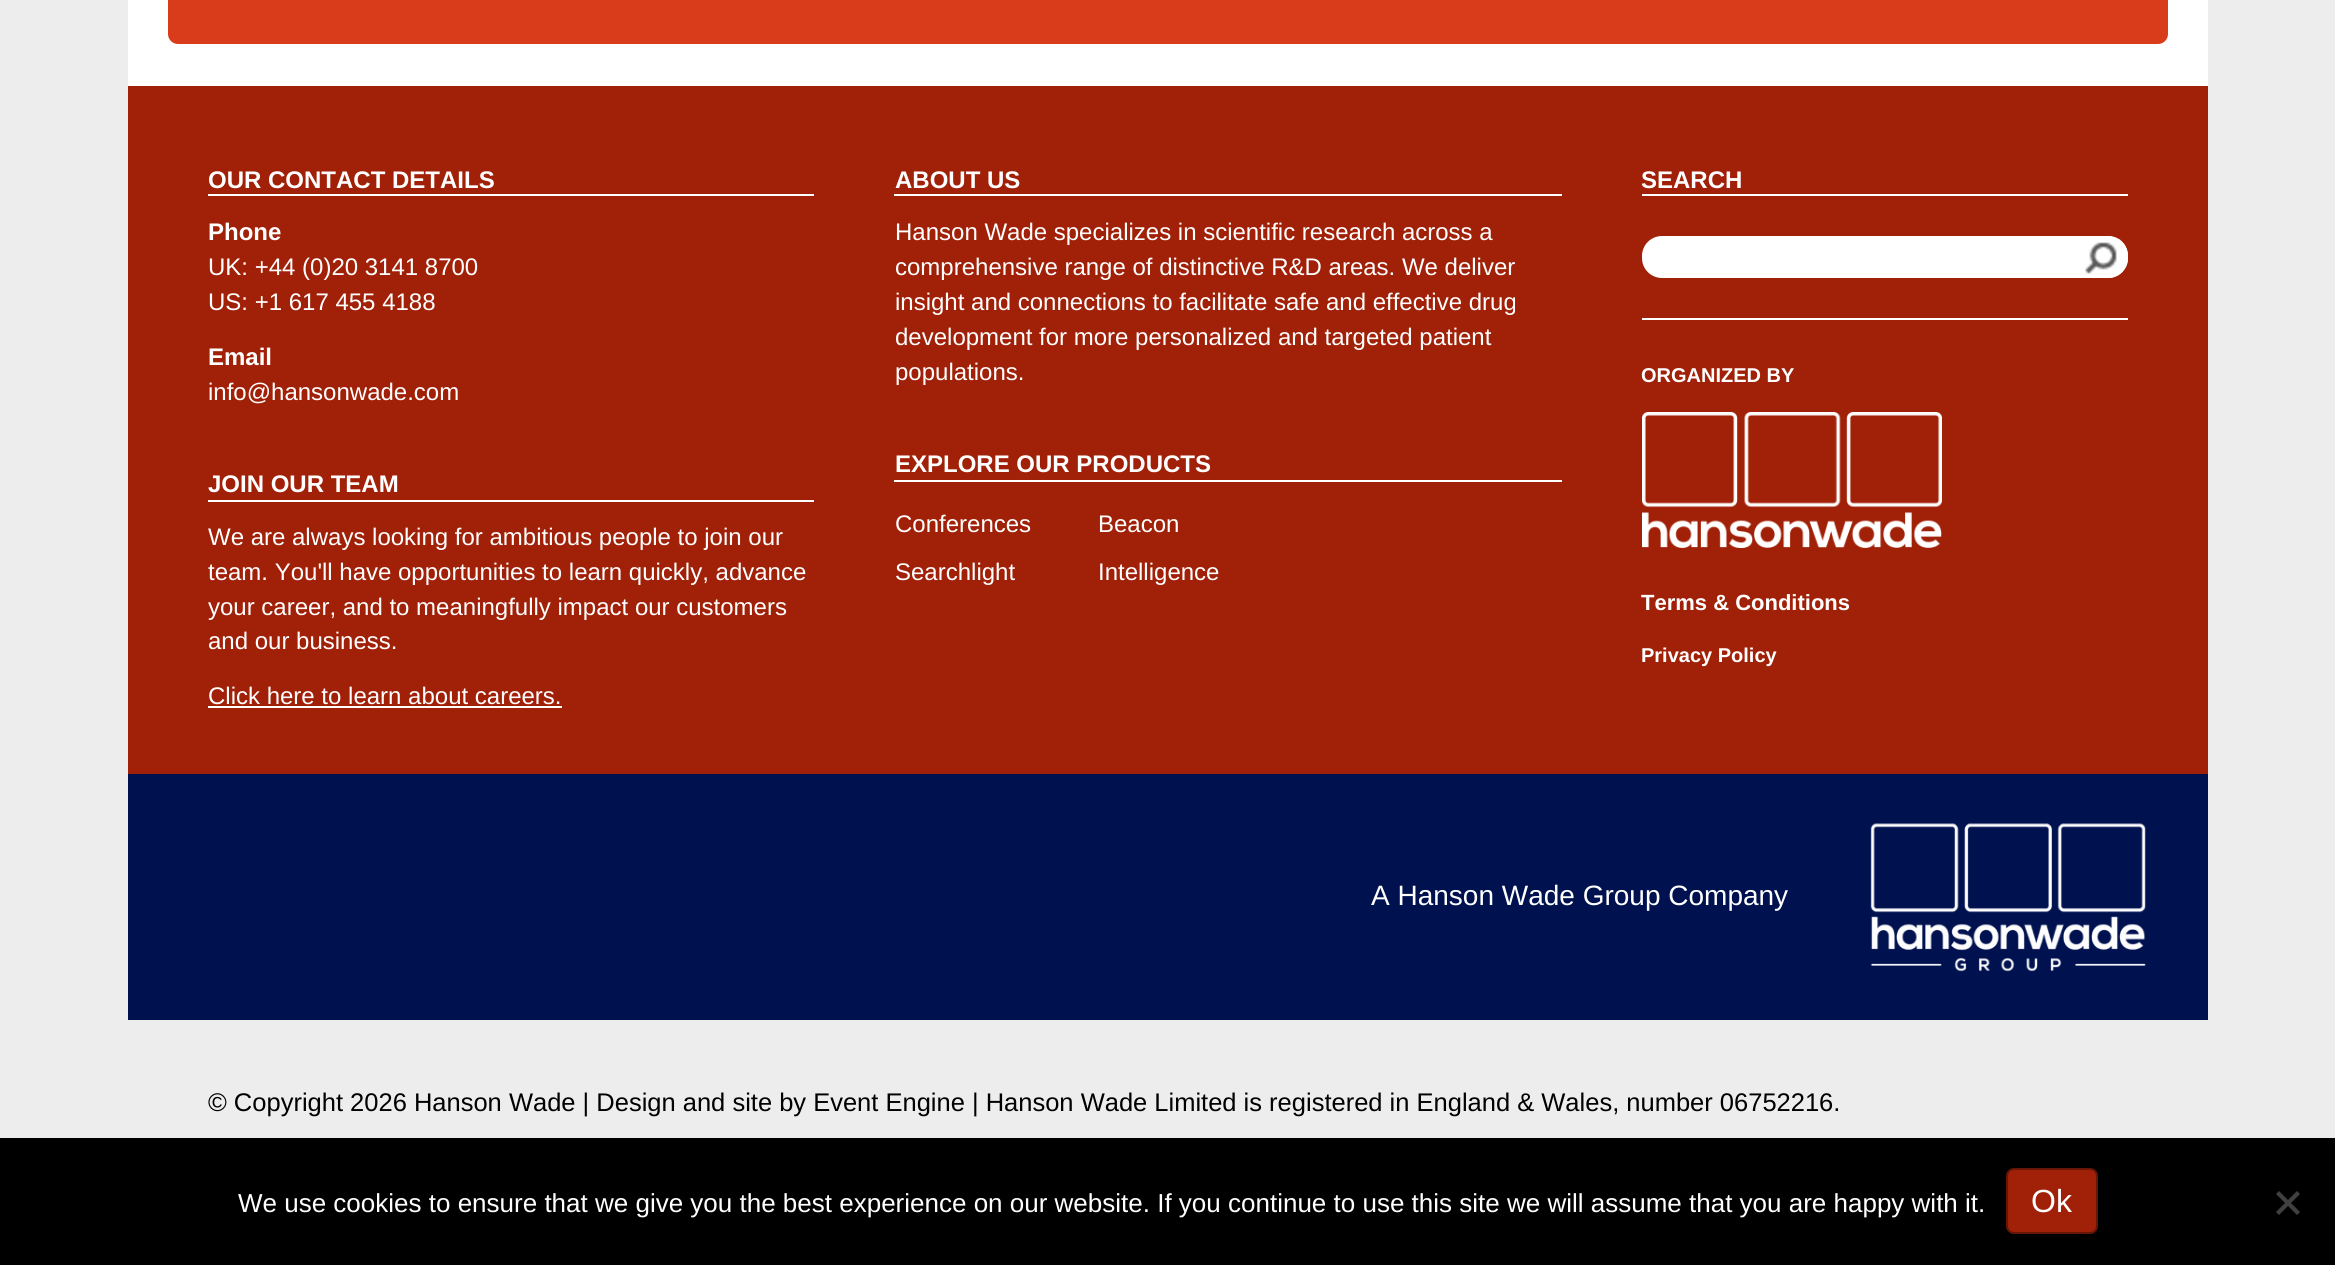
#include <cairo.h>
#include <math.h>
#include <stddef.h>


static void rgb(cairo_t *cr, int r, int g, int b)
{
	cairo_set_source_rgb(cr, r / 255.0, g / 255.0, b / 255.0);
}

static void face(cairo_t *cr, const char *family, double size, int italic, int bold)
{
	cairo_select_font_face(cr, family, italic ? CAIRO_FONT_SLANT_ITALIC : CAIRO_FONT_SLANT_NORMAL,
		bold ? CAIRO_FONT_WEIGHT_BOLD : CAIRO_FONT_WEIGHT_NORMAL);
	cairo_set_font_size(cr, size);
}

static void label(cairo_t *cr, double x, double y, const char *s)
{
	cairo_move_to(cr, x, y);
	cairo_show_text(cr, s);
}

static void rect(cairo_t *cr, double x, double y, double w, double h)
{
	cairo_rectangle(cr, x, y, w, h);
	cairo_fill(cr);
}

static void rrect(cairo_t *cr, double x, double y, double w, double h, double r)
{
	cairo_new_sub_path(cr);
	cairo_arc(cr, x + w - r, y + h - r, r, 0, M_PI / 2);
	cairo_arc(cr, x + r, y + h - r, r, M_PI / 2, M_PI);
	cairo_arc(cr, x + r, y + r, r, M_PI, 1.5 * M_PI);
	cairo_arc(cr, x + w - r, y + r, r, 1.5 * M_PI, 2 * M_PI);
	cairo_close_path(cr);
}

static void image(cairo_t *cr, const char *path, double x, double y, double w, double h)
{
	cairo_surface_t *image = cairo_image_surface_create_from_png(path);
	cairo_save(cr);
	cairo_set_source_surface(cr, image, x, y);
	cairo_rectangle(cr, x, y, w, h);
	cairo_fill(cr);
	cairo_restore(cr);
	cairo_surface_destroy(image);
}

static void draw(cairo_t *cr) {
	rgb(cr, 237, 237, 237);
	cairo_paint(cr);
	rgb(cr, 255, 255, 255);
	rect(cr, 128, 0, 2080, 86);
	rgb(cr, 216, 60, 26);
	rrect(cr, 168, -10, 2000, 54, 10);
	cairo_fill(cr);
	rgb(cr, 161, 33, 8);
	rect(cr, 128, 86, 2080, 688);
	rgb(cr, 255, 255, 255);
	rect(cr, 208, 194, 606, 2);
	face(cr, "Liberation Sans", 24, 0, 1);
	label(cr, 208, 188, "OUR CONTACT DETAILS");
	label(cr, 208, 240, "Phone");
	face(cr, "Liberation Sans", 24, 0, 0);
	label(cr, 208, 275, "UK: +44 (0)20 3141 8700");
	label(cr, 208, 310, "US: +1 617 455 4188");
	face(cr, "Liberation Sans", 24, 0, 1);
	label(cr, 208, 365, "Email");
	face(cr, "Liberation Sans", 24, 0, 0);
	label(cr, 208, 400, "info@hansonwade.com");
	rect(cr, 208, 500, 606, 2);
	face(cr, "Liberation Sans", 24, 0, 1);
	label(cr, 208, 492, "JOIN OUR TEAM");
	face(cr, "Liberation Sans", 24, 0, 0);
	label(cr, 208, 545, "We are always looking for ambitious people to join our");
	label(cr, 208, 580, "team. You'll have opportunities to learn quickly, advance");
	label(cr, 208, 615, "your career, and to meaningfully impact our customers");
	label(cr, 208, 649, "and our business.");
	label(cr, 208, 704, "Click here to learn about careers.");
	rect(cr, 208, 706, 354, 2);
	rect(cr, 894, 194, 668, 2);
	face(cr, "Liberation Sans", 24, 0, 1);
	label(cr, 895, 188, "ABOUT US");
	face(cr, "Liberation Sans", 24, 0, 0);
	label(cr, 895, 240, "Hanson Wade specializes in scientific research across a");
	label(cr, 895, 275, "comprehensive range of distinctive R&D areas. We deliver");
	label(cr, 895, 310, "insight and connections to facilitate safe and effective drug");
	label(cr, 895, 345, "development for more personalized and targeted patient");
	label(cr, 895, 380, "populations.");
	rect(cr, 894, 480, 668, 2);
	face(cr, "Liberation Sans", 24, 0, 1);
	label(cr, 895, 472, "EXPLORE OUR PRODUCTS");
	face(cr, "Liberation Sans", 24, 0, 0);
	label(cr, 895, 532, "Conferences");
	label(cr, 1098, 532, "Beacon");
	label(cr, 895, 580, "Searchlight");
	label(cr, 1098, 580, "Intelligence");
	rect(cr, 1642, 194, 486, 2);
	face(cr, "Liberation Sans", 24, 0, 1);
	label(cr, 1641, 188, "SEARCH");
	rrect(cr, 1642, 236, 486, 42, 20);
	cairo_fill(cr);
	image(cr, "image0.png", 2085, 236, 43, 42);
	rect(cr, 1642, 318, 486, 2);
	face(cr, "Liberation Sans", 20, 0, 1);
	label(cr, 1641, 382, "ORGANIZED BY");
	image(cr, "image1.png", 1642, 412, 300, 136);
	face(cr, "Liberation Sans", 22, 0, 1);
	label(cr, 1641, 610, "Terms & Conditions");
	face(cr, "Liberation Sans", 20, 0, 1);
	label(cr, 1641, 662, "Privacy Policy");
	rgb(cr, 0, 17, 79);
	rect(cr, 128, 774, 2080, 246);
	face(cr, "Liberation Sans", 28, 0, 0);
	rgb(cr, 255, 255, 255);
	label(cr, 1371, 905, "A Hanson Wade Group Company");
	image(cr, "image2.png", 1870, 823, 276, 149);
	face(cr, "Liberation Sans", 25.5, 0, 0);
	rgb(cr, 0, 0, 0);
	label(cr, 208, 1111, "© Copyright 2026 Hanson Wade | Design and site by Event Engine | Hanson Wade Limited is registered in England & Wales, number 06752216.");
	rect(cr, 0, 1138, 2335, 127);
	face(cr, "Liberation Sans", 26, 0, 0);
	rgb(cr, 255, 255, 255);
	label(cr, 238, 1212, "We use cookies to ensure that we give you the best experience on our website. If you continue to use this site we will assume that you are happy with it.");
	rgb(cr, 161, 33, 8);
	rrect(cr, 2007, 1169, 90, 64, 7);
	cairo_fill_preserve(cr);
	rgb(cr, 103, 21, 5);
	cairo_stroke(cr);
	face(cr, "Liberation Sans", 32, 0, 0);
	rgb(cr, 255, 255, 255);
	label(cr, 2031, 1212, "Ok");
	rgb(cr, 64, 64, 64);
	cairo_new_path(cr);
	cairo_move_to(cr, 2297, 1191);
	cairo_line_to(cr, 2300, 1194);
	cairo_line_to(cr, 2279, 1215);
	cairo_line_to(cr, 2276, 1212);
	cairo_close_path(cr);
	cairo_fill(cr);
	cairo_new_path(cr);
	cairo_move_to(cr, 2276, 1194);
	cairo_line_to(cr, 2279, 1191);
	cairo_line_to(cr, 2300, 1212);
	cairo_line_to(cr, 2297, 1215);
	cairo_close_path(cr);
	cairo_fill(cr);
}

int main(void) {
	cairo_surface_t *surface = cairo_image_surface_create(CAIRO_FORMAT_RGB24, 2335, 1265);
	cairo_t *cr = cairo_create(surface);
	cairo_font_options_t *options = cairo_font_options_create();
	cairo_font_options_set_hint_metrics(options, CAIRO_HINT_METRICS_OFF);
	cairo_font_options_set_hint_style(options, CAIRO_HINT_STYLE_NONE);
	cairo_set_font_options(cr, options);
	cairo_set_miter_limit(cr, 4);
	draw(cr);
	cairo_surface_write_to_png(surface, "render.png");
	cairo_font_options_destroy(options);
	cairo_destroy(cr);
	cairo_surface_destroy(surface);
	return 0;
}
